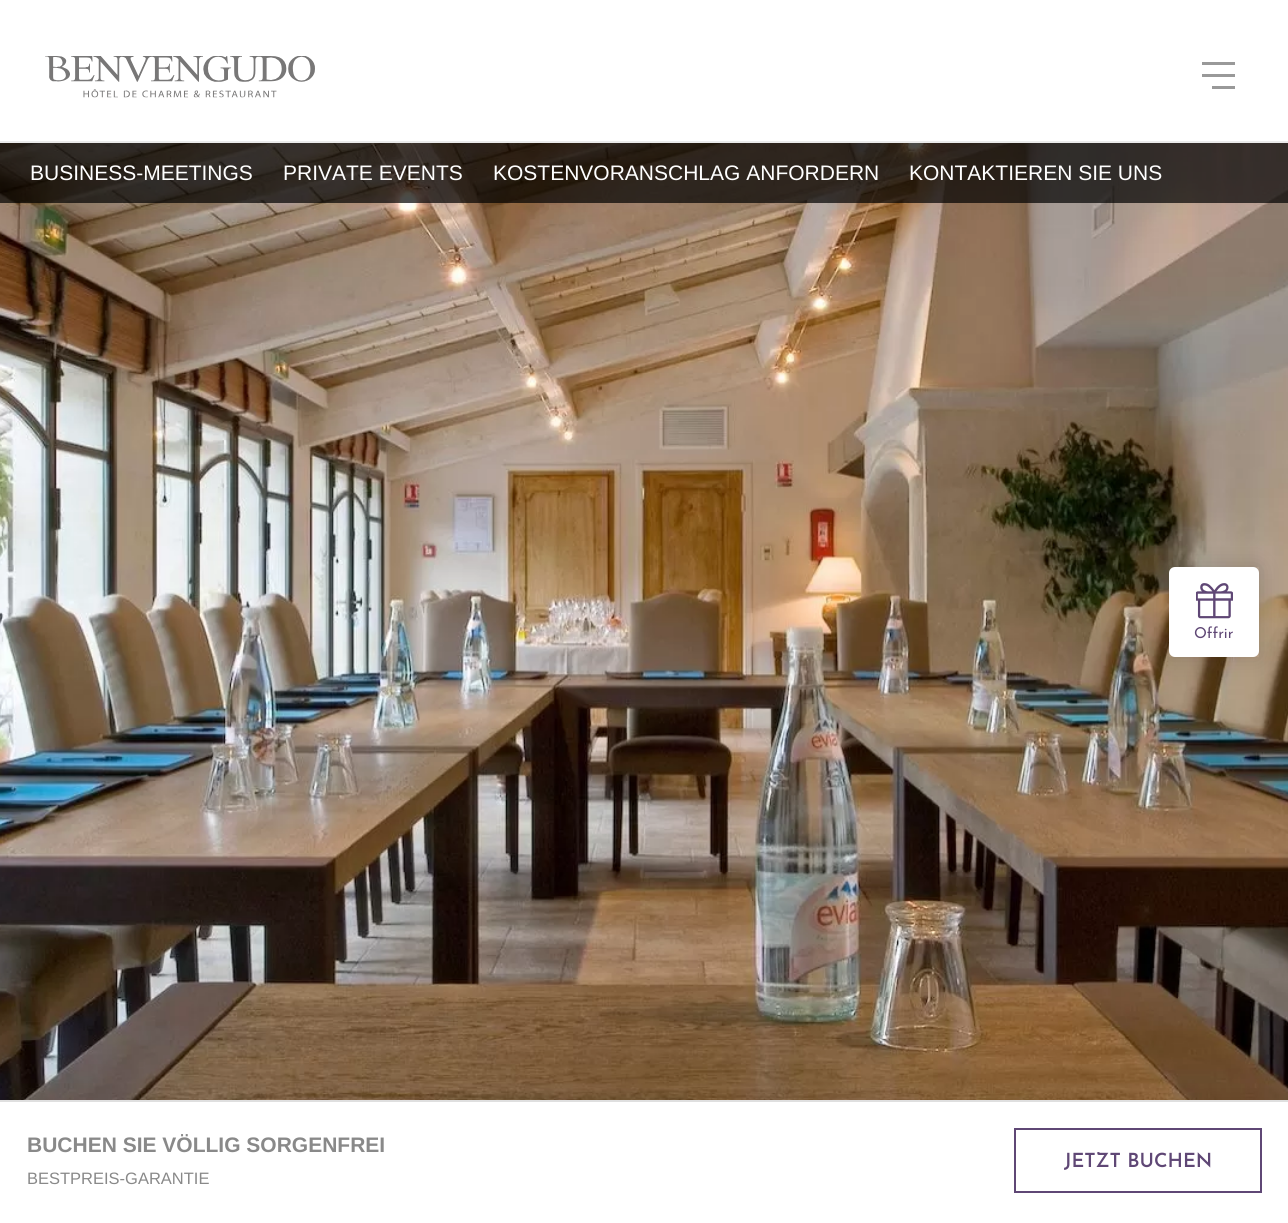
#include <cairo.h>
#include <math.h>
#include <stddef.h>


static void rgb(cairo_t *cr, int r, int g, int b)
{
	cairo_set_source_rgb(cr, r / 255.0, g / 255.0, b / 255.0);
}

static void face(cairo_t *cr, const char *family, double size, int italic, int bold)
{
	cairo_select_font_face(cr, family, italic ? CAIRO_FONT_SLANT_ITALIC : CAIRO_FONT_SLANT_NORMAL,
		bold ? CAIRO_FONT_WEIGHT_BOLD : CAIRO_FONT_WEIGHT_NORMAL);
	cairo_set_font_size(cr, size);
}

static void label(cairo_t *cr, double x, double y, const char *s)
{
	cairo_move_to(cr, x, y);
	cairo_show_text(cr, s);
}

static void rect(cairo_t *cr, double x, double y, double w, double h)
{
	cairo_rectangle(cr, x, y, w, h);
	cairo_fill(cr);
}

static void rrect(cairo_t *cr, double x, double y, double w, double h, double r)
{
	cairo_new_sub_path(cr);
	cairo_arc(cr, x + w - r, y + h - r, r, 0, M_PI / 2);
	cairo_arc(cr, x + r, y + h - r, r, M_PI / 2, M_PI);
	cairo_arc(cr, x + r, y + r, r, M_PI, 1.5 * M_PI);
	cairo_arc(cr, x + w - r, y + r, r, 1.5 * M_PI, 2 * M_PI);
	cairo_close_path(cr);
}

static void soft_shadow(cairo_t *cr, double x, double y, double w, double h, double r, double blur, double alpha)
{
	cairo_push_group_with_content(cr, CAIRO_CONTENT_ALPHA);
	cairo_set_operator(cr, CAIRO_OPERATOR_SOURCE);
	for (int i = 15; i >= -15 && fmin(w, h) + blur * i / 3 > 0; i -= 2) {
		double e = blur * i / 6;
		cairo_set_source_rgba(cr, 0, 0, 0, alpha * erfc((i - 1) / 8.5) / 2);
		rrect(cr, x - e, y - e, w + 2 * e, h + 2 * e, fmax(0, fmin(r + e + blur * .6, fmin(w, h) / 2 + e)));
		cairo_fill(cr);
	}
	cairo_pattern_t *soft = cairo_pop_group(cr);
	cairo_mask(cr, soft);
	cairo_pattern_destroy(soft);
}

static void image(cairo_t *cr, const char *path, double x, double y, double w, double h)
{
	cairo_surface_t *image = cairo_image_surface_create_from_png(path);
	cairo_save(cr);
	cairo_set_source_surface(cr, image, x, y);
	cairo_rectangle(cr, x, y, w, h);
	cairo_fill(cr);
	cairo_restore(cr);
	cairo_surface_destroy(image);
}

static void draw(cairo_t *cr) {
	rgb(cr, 255, 255, 255);
	cairo_paint(cr);
	rgb(cr, 235, 235, 235);
	rect(cr, 0, 141, 1288, 2);
	image(cr, "image0.png", 45, 56, 270, 42);
	rgb(cr, 153, 153, 153);
	rect(cr, 1202, 62, 33, 3);
	rect(cr, 1202, 74, 33, 3);
	rect(cr, 1212, 86, 23, 3);
	image(cr, "image1.png", 0, 143, 1288, 957);
	cairo_set_source_rgba(cr, 0, 0, 0, 0.7);
	rect(cr, 0, 143, 1288, 60);
	face(cr, "Liberation Sans", 21, 0, 0);
	rgb(cr, 255, 255, 255);
	label(cr, 30, 180, "BUSINESS-MEETINGS");
	label(cr, 283, 180, "PRIVATE EVENTS");
	label(cr, 493, 180, "KOSTENVORANSCHLAG ANFORDERN");
	label(cr, 909, 180, "KONTAKTIEREN SIE UNS");
	cairo_save(cr);
	cairo_set_fill_rule(cr, CAIRO_FILL_RULE_EVEN_ODD);
	cairo_new_path(cr);
	cairo_move_to(cr, 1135, 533);
	cairo_line_to(cr, 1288, 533);
	cairo_line_to(cr, 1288, 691);
	cairo_line_to(cr, 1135, 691);
	cairo_close_path(cr);
	cairo_move_to(cr, 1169, 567);
	cairo_line_to(cr, 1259, 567);
	cairo_line_to(cr, 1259, 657);
	cairo_line_to(cr, 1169, 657);
	cairo_close_path(cr);
	cairo_clip(cr);
	rgb(cr, 0, 0, 0);
	soft_shadow(cr, 1169, 567, 90, 90, 0, 11, 0.15);
	cairo_restore(cr);
	rrect(cr, 1169, 567, 90, 90, 6);
	cairo_fill(cr);
	image(cr, "image2.png", 1196, 583, 37, 36);
	face(cr, "Josefin Sans Thin", 15, 0, 0);
	rgb(cr, 95, 71, 117);
	label(cr, 1194, 638, "Offrir");
	rgb(cr, 223, 223, 223);
	rect(cr, 0, 1100, 1288, 2);
	face(cr, "Liberation Sans", 21, 0, 1);
	rgb(cr, 137, 137, 137);
	label(cr, 27, 1152, "BUCHEN SIE VÖLLIG SORGENFREI");
	face(cr, "Liberation Sans", 16.5, 0, 0);
	label(cr, 27, 1184, "BESTPREIS-GARANTIE");
	cairo_rectangle(cr, 1015, 1129, 246, 63);
	rgb(cr, 95, 71, 117);
	cairo_stroke(cr);
	face(cr, "Josefin Sans SemiBold", 19.5, 0, 0);
	label(cr, 1064, 1167, "JETZT BUCHEN");
}

int main(void) {
	cairo_surface_t *surface = cairo_image_surface_create(CAIRO_FORMAT_RGB24, 1288, 1223);
	cairo_t *cr = cairo_create(surface);
	cairo_font_options_t *options = cairo_font_options_create();
	cairo_font_options_set_hint_metrics(options, CAIRO_HINT_METRICS_OFF);
	cairo_font_options_set_hint_style(options, CAIRO_HINT_STYLE_NONE);
	cairo_set_font_options(cr, options);
	cairo_set_miter_limit(cr, 4);
	draw(cr);
	cairo_surface_write_to_png(surface, "render.png");
	cairo_font_options_destroy(options);
	cairo_destroy(cr);
	cairo_surface_destroy(surface);
	return 0;
}
